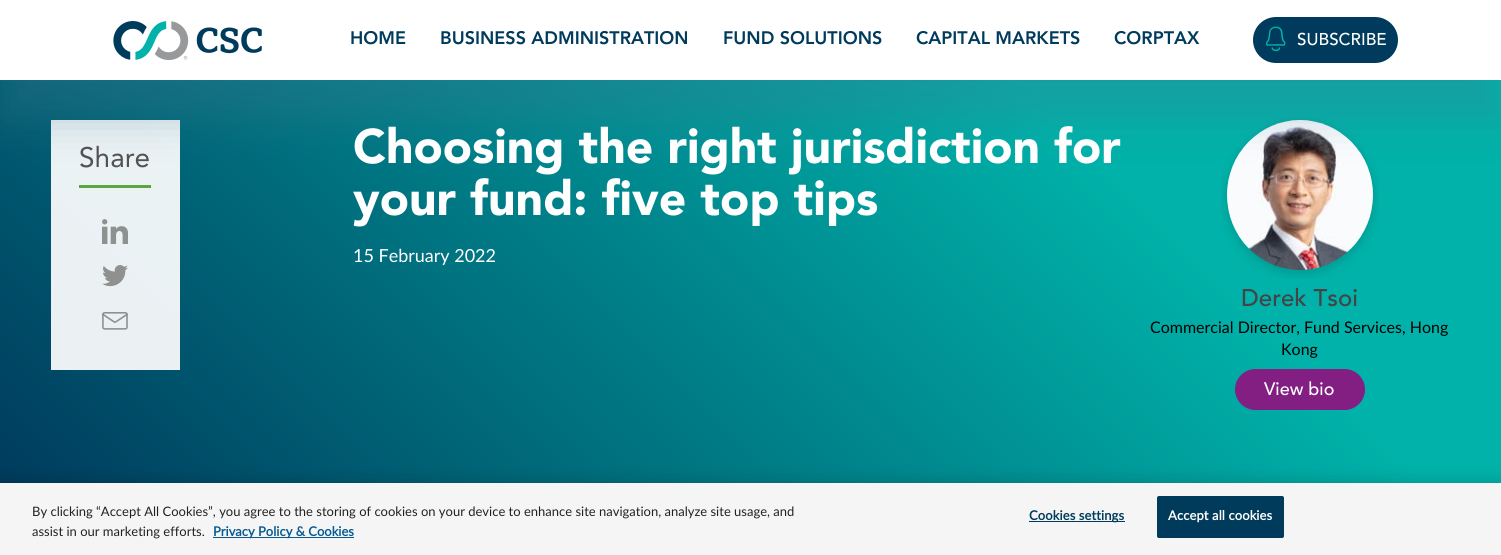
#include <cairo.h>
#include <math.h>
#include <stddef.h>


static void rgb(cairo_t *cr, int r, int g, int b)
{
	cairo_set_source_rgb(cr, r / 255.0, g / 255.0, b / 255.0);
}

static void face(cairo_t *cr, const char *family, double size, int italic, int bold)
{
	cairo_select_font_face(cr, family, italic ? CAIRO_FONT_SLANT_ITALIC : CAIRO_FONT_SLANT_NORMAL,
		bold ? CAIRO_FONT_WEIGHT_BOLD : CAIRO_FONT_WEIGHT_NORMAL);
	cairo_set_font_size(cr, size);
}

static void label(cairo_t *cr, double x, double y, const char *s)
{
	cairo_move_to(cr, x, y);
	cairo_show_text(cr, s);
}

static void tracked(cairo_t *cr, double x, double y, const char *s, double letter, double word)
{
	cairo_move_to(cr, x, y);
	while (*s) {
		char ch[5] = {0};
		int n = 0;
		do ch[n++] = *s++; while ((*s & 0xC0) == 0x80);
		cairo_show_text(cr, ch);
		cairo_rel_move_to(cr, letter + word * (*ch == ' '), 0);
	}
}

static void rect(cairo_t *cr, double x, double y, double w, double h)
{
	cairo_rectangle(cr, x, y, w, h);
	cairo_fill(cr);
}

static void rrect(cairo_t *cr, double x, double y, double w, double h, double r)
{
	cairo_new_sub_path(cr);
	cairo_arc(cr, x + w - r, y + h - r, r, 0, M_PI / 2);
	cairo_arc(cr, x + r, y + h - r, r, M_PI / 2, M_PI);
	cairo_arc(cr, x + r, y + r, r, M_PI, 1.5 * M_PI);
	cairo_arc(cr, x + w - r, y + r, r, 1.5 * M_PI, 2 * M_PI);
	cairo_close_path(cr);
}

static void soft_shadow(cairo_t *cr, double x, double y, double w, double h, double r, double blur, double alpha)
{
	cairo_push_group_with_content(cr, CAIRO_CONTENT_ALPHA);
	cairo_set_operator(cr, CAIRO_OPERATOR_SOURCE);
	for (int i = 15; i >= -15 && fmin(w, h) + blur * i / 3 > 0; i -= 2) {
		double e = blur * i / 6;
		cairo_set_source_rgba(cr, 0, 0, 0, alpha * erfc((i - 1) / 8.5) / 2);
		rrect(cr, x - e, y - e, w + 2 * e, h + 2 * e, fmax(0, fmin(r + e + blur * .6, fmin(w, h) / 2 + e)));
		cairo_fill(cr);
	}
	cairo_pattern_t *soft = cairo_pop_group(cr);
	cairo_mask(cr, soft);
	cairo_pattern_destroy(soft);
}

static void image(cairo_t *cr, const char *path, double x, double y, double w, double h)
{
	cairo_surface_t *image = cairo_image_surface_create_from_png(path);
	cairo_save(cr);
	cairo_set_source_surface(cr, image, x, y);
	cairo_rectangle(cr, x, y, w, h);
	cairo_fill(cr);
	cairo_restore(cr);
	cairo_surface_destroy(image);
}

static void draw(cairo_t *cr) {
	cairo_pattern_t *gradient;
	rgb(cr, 255, 255, 255);
	cairo_paint(cr);
	gradient = cairo_pattern_create_linear(1250, -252, 252, 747);
	cairo_pattern_add_color_stop_rgba(gradient, 0.28, 0, 0.698, 0.663, 1);
	cairo_pattern_add_color_stop_rgba(gradient, 1, 0, 0.227, 0.361, 1);
	cairo_set_source(cr, gradient);
	cairo_pattern_destroy(gradient);
	rect(cr, 0, 80, 1501, 403);
	gradient = cairo_pattern_create_linear(1250, -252, 252, 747);
	cairo_pattern_add_color_stop_rgba(gradient, 0.28, 0.922, 0.976, 0.973, 1);
	cairo_pattern_add_color_stop_rgba(gradient, 1, 0.922, 0.937, 0.949, 1);
	cairo_set_source(cr, gradient);
	cairo_pattern_destroy(gradient);
	rect(cr, 51, 120, 129, 250);
	image(cr, "image5.png", 1221, 117, 158, 162);
	rgb(cr, 66, 120, 143);
	soft_shadow(cr, 0, 40, 1501, 80, 0, 20, 0.3);
	soft_shadow(cr, 0, 1, 1501, 80, 0, 0.5, 0.1);
	rgb(cr, 255, 255, 255);
	rect(cr, 0, 0, 1501, 80);
	image(cr, "image0.png", 113, 21, 149, 40);
	face(cr, "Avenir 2 Black", 18, 0, 0);
	rgb(cr, 0, 58, 92);
	label(cr, 350, 44, "HOME");
	label(cr, 440, 44, "BUSINESS ADMINISTRATION");
	label(cr, 723, 44, "FUND SOLUTIONS");
	label(cr, 916, 44, "CAPITAL MARKETS");
	label(cr, 1114, 44, "CORPTAX");
	rrect(cr, 1254, 18, 143, 44, 22);
	cairo_fill_preserve(cr);
	cairo_stroke(cr);
	image(cr, "image1.png", 1266, 26, 20, 26);
	face(cr, "Avenir Medium", 17, 0, 0);
	rgb(cr, 255, 255, 255);
	label(cr, 1297, 45, "SUBSCRIBE");
	rgb(cr, 92, 165, 63);
	rect(cr, 79, 185, 72, 3);
	face(cr, "Avenir", 28, 0, 0);
	rgb(cr, 81, 82, 82);
	label(cr, 79, 167, "Share");
	image(cr, "image2.png", 102, 219, 26, 25);
	image(cr, "image3.png", 102, 265, 26, 22);
	image(cr, "image4.png", 102, 312, 26, 18);
	face(cr, "Avenir Black", 48, 0, 0);
	rgb(cr, 255, 255, 255);
	label(cr, 353, 163, "Choosing the right jurisdiction for");
	label(cr, 353, 215, "your fund: five top tips");
	face(cr, "Lato", 18, 0, 0);
	label(cr, 353, 262, "15 February 2022");
	face(cr, "Avenir Medium", 24, 0, 0);
	rgb(cr, 68, 68, 68);
	label(cr, 1241, 306, "Derek Tsoi");
	face(cr, "Lato", 16, 0, 0);
	rgb(cr, 0, 0, 0);
	label(cr, 1150, 333, "Commercial Director, Fund Services, Hong");
	label(cr, 1281, 355, "Kong");
	rgb(cr, 131, 31, 130);
	rrect(cr, 1235.5, 369.5, 129, 40, 20);
	cairo_fill_preserve(cr);
	cairo_set_line_width(cr, 1);
	cairo_stroke(cr);
	face(cr, "Avenir Medium", 18, 0, 0);
	rgb(cr, 255, 255, 255);
	label(cr, 1264, 395, "View bio");
	rgb(cr, 0, 0, 0);
	soft_shadow(cr, 0, 483, 1501, 72, 0, 9, 0.2);
	rgb(cr, 245, 245, 245);
	rect(cr, 0, 483, 1501, 72);
	face(cr, "Lato", 13, 0, 0);
	rgb(cr, 34, 34, 34);
	label(cr, 32, 516, "By clicking “Accept All Cookies”, you agree to the storing of cookies on your device to enhance site navigation, analyze site usage, and");
	label(cr, 32, 536, "assist in our marketing efforts.");
	rgb(cr, 7, 90, 146);
	rect(cr, 213, 537, 141, 1);
	face(cr, "Lato", 13, 0, 1);
	label(cr, 213, 536, "Privacy Policy & Cookies");
	rgb(cr, 0, 59, 92);
	rect(cr, 1029, 521, 96, 1);
	rgb(cr, 0, 58, 92);
	tracked(cr, 1029, 520, "Cookies settings", 0.1, 0);
	rgb(cr, 0, 59, 92);
	rrect(cr, 1157.5, 496.5, 126, 41, 1.5);
	cairo_fill_preserve(cr);
	cairo_stroke(cr);
	rgb(cr, 255, 255, 255);
	tracked(cr, 1168, 520, "Accept all cookies", 0.1, 0);
}

int main(void) {
	cairo_surface_t *surface = cairo_image_surface_create(CAIRO_FORMAT_RGB24, 1501, 555);
	cairo_t *cr = cairo_create(surface);
	cairo_font_options_t *options = cairo_font_options_create();
	cairo_font_options_set_hint_metrics(options, CAIRO_HINT_METRICS_OFF);
	cairo_font_options_set_hint_style(options, CAIRO_HINT_STYLE_NONE);
	cairo_set_font_options(cr, options);
	cairo_set_miter_limit(cr, 4);
	draw(cr);
	cairo_surface_write_to_png(surface, "render.png");
	cairo_font_options_destroy(options);
	cairo_destroy(cr);
	cairo_surface_destroy(surface);
	return 0;
}
